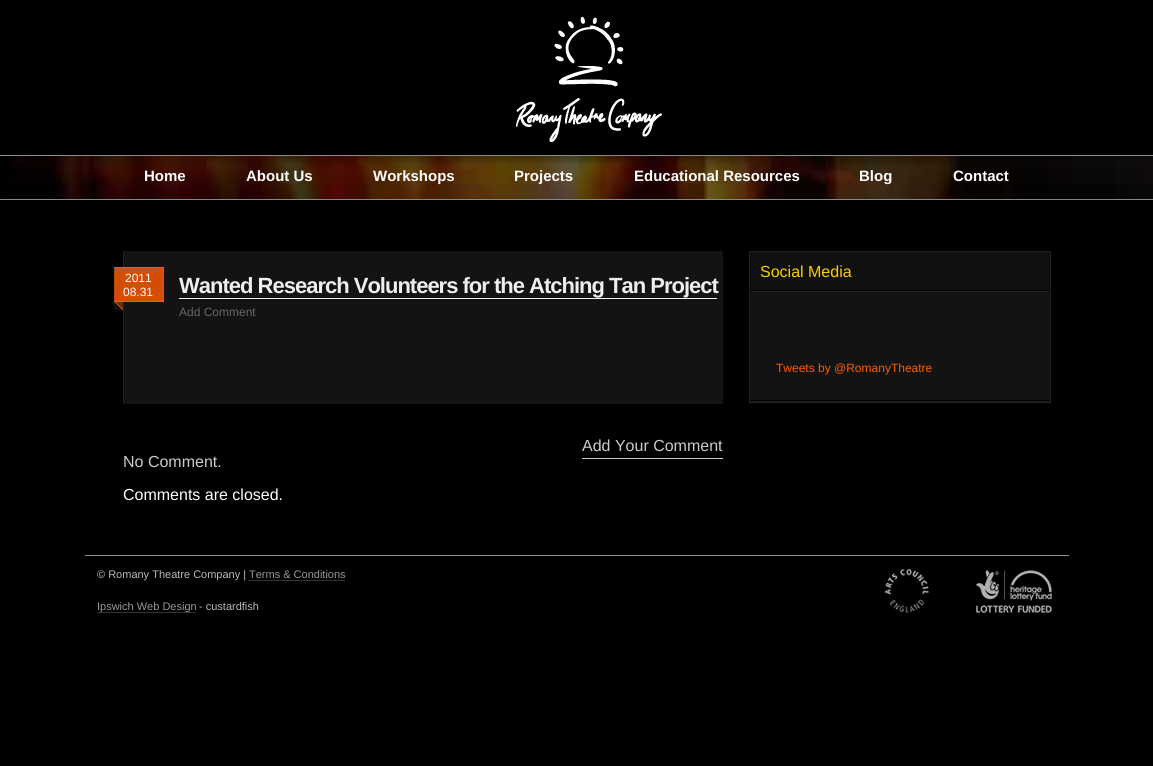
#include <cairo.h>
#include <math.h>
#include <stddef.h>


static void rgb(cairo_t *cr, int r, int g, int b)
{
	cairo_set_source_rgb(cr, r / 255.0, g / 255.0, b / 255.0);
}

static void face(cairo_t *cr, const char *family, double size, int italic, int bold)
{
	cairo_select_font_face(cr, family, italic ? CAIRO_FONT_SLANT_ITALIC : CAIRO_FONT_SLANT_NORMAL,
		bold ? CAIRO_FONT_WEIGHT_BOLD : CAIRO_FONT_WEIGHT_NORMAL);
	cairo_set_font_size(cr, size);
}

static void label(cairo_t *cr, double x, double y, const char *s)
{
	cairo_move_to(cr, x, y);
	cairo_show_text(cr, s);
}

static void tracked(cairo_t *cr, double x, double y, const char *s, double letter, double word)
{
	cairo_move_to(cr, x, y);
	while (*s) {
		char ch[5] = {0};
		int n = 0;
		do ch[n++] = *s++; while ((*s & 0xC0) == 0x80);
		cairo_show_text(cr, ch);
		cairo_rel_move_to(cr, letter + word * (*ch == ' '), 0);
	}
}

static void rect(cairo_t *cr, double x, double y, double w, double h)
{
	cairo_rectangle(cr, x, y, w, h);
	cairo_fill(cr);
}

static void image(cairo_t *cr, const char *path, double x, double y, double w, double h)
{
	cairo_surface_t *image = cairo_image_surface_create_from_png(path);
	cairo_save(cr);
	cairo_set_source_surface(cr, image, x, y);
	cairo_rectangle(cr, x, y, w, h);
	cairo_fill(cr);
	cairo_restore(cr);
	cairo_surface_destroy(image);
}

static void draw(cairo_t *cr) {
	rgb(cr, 0, 0, 0);
	cairo_paint(cr);
	image(cr, "image0.png", 516, 17, 146, 125);
	image(cr, "image1.png", 8, 156, 1145, 43);
	rgb(cr, 136, 136, 136);
	rect(cr, 0, 155, 1153, 1);
	rect(cr, 0, 199, 1153, 1);
	face(cr, "Liberation Sans", 15, 0, 1);
	rgb(cr, 255, 255, 255);
	label(cr, 144, 181, "Home");
	label(cr, 246, 181, "About Us");
	label(cr, 373, 181, "Workshops");
	label(cr, 514, 181, "Projects");
	label(cr, 634, 181, "Educational Resources");
	label(cr, 859, 181, "Blog");
	label(cr, 953, 181, "Contact");
	rgb(cr, 19, 19, 19);
	rect(cr, 124, 251, 599, 153);
	rgb(cr, 31, 34, 35);
	rect(cr, 123, 251, 1, 153);
	image(cr, "image2.png", 114, 267, 50, 43);
	face(cr, "Liberation Sans", 12, 0, 0);
	rgb(cr, 255, 255, 255);
	label(cr, 125, 282, "2011");
	label(cr, 123, 296, "08.31");
	face(cr, "Liberation Sans", 22, 0, 1);
	rgb(cr, 238, 238, 238);
	tracked(cr, 179, 293, "Wanted Research Volunteers for the Atching Tan Project", -1, 0);
	rect(cr, 179, 298, 538, 1);
	face(cr, "Liberation Sans", 12, 0, 0);
	rgb(cr, 102, 102, 102);
	label(cr, 179, 316, "Add Comment");
	rgb(cr, 204, 204, 204);
	rect(cr, 582, 458, 141, 1);
	face(cr, "Liberation Sans", 16, 0, 0);
	label(cr, 582, 451, "Add Your Comment");
	label(cr, 123, 467, "No Comment.");
	rgb(cr, 255, 255, 255);
	label(cr, 123, 500, "Comments are closed.");
	rgb(cr, 19, 19, 19);
	rect(cr, 750, 292, 300, 108);
	cairo_rectangle(cr, 749.5, 251.5, 301, 151);
	rgb(cr, 31, 34, 35);
	cairo_set_line_width(cr, 1);
	cairo_stroke(cr);
	image(cr, "image3.png", 750, 400, 300, 2);
	rgb(cr, 16, 16, 16);
	rect(cr, 750, 252, 300, 38);
	image(cr, "image4.png", 750, 290, 300, 2);
	rgb(cr, 255, 206, 0);
	label(cr, 760, 277, "Social Media");
	face(cr, "Liberation Sans", 12, 0, 0);
	rgb(cr, 255, 90, 0);
	label(cr, 776, 372, "Tweets by @RomanyTheatre");
	rgb(cr, 136, 136, 136);
	rect(cr, 85, 555, 984, 1);
	face(cr, "Liberation Sans", 11, 0, 0);
	rgb(cr, 187, 187, 187);
	label(cr, 97, 578, "© Romany Theatre Company |");
	rgb(cr, 153, 153, 153);
	label(cr, 249, 578, "Terms & Conditions");
	rgb(cr, 51, 51, 51);
	rect(cr, 249, 580, 96, 1);
	rect(cr, 97, 612, 99, 1);
	rgb(cr, 153, 153, 153);
	label(cr, 97, 610, "Ipswich Web Design");
	rgb(cr, 187, 187, 187);
	label(cr, 199, 610, "- custardfish");
	image(cr, "image5.png", 884, 568, 45, 45);
	image(cr, "image6.png", 976, 570, 76, 43);
}

int main(void) {
	cairo_surface_t *surface = cairo_image_surface_create(CAIRO_FORMAT_RGB24, 1153, 766);
	cairo_t *cr = cairo_create(surface);
	cairo_font_options_t *options = cairo_font_options_create();
	cairo_font_options_set_hint_metrics(options, CAIRO_HINT_METRICS_OFF);
	cairo_font_options_set_hint_style(options, CAIRO_HINT_STYLE_NONE);
	cairo_set_font_options(cr, options);
	cairo_set_miter_limit(cr, 4);
	draw(cr);
	cairo_surface_write_to_png(surface, "render.png");
	cairo_font_options_destroy(options);
	cairo_destroy(cr);
	cairo_surface_destroy(surface);
	return 0;
}
